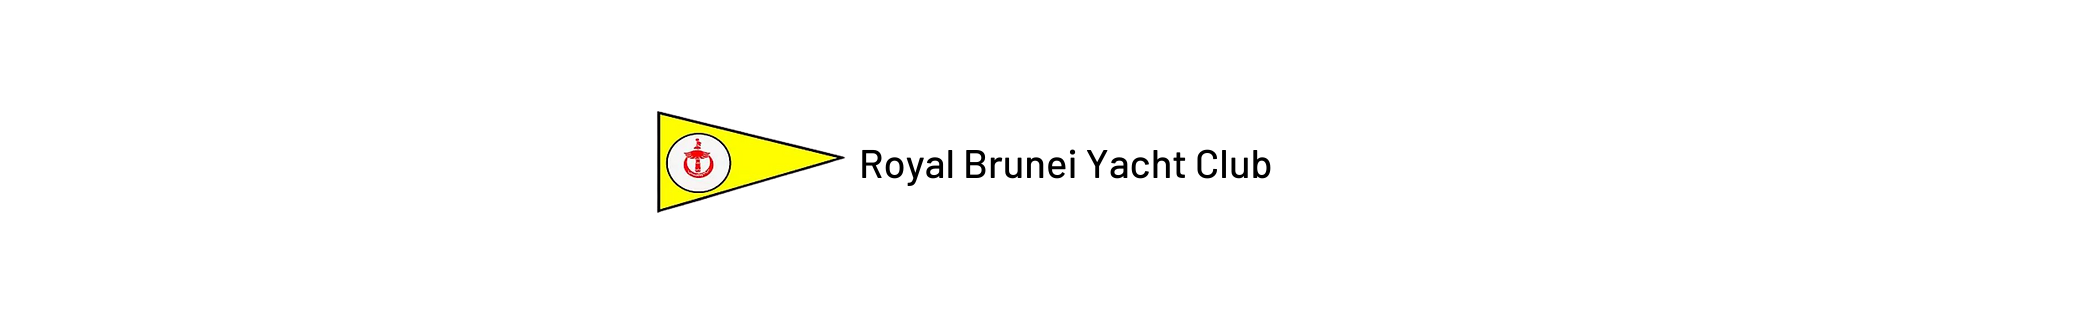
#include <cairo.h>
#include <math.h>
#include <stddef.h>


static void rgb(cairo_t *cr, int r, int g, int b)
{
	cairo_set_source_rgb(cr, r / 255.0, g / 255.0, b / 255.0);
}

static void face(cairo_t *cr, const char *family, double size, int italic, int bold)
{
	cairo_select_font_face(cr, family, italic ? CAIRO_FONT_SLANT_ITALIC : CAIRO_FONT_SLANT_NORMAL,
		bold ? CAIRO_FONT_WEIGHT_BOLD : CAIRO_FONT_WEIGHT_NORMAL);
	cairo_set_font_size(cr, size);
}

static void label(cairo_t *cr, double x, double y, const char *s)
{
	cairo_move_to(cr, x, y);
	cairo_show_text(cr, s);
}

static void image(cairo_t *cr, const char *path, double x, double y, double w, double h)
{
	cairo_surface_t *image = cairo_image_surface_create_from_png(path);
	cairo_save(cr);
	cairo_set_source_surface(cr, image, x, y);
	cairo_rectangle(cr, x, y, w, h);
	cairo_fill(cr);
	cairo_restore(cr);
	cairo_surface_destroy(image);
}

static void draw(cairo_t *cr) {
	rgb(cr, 255, 255, 255);
	cairo_paint(cr);
	image(cr, "image0.png", 656, 111, 190, 102);
	face(cr, "Barlow Medium", 40, 0, 0);
	rgb(cr, 0, 0, 0);
	label(cr, 859, 178, "Royal Brunei Yacht Club");
}

int main(void) {
	cairo_surface_t *surface = cairo_image_surface_create(CAIRO_FORMAT_RGB24, 2100, 315);
	cairo_t *cr = cairo_create(surface);
	cairo_font_options_t *options = cairo_font_options_create();
	cairo_font_options_set_hint_metrics(options, CAIRO_HINT_METRICS_OFF);
	cairo_font_options_set_hint_style(options, CAIRO_HINT_STYLE_NONE);
	cairo_set_font_options(cr, options);
	cairo_set_miter_limit(cr, 4);
	draw(cr);
	cairo_surface_write_to_png(surface, "render.png");
	cairo_font_options_destroy(options);
	cairo_destroy(cr);
	cairo_surface_destroy(surface);
	return 0;
}
